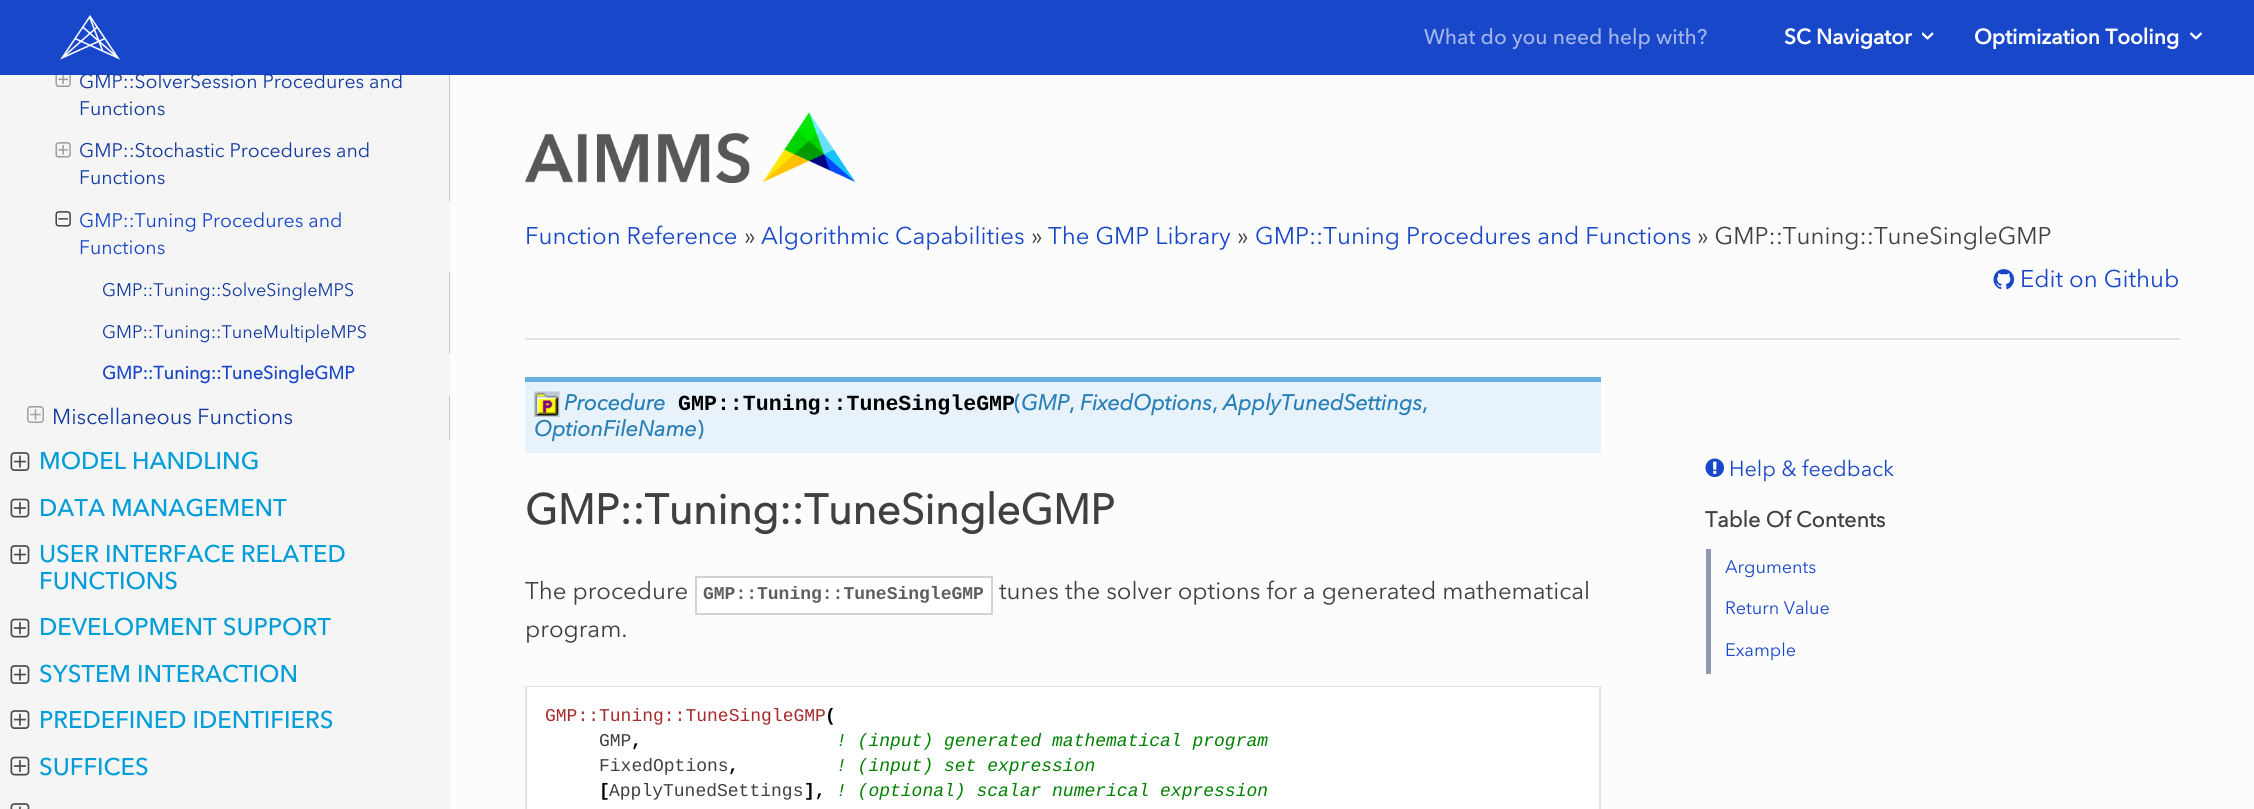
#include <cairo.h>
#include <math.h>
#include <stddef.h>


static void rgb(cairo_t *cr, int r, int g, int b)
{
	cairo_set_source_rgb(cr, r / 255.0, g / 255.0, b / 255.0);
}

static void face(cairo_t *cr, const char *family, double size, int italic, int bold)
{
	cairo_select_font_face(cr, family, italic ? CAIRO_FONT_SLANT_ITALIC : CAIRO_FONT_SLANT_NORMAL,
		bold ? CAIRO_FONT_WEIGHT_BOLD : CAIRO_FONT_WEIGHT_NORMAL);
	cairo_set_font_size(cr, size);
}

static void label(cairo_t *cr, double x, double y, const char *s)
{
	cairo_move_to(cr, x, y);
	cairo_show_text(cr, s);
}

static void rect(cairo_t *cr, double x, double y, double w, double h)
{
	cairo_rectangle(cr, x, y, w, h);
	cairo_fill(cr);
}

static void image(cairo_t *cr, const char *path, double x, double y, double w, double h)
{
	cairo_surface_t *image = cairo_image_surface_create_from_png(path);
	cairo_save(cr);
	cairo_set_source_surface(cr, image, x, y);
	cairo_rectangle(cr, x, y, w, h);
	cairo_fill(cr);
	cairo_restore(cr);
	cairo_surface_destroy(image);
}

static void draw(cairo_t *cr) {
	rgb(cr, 252, 252, 252);
	cairo_paint(cr);
	rgb(cr, 24, 71, 201);
	rect(cr, 0, 0, 2254, 75);
	image(cr, "image0.png", 60, 15, 60, 45);
	face(cr, "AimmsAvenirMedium", 21, 0, 0);
	rgb(cr, 163, 181, 233);
	label(cr, 1424, 44, "What do you need help with?");
	face(cr, "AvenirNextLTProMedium", 21, 0, 1);
	rgb(cr, 255, 255, 255);
	label(cr, 1784, 44, "SC Navigator");
	image(cr, "image1.png", 1922, 32, 12, 8);
	label(cr, 1974, 44, "Optimization Tooling");
	image(cr, "image2.png", 2190, 32, 12, 8);
	rgb(cr, 245, 245, 245);
	rect(cr, 0, 75, 450, 734);
	rgb(cr, 201, 201, 201);
	rect(cr, 449, 75, 1, 126);
	image(cr, "image3.png", 55, 75, 16, 12);
	face(cr, "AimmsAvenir", 19.5, 0, 0);
	rgb(cr, 19, 58, 159);
	label(cr, 79, 88, "GMP::SolverSession Procedures and");
	label(cr, 79, 115, "Functions");
	image(cr, "image4.png", 55, 142, 16, 16);
	label(cr, 79, 157, "GMP::Stochastic Procedures and");
	label(cr, 79, 184, "Functions");
	image(cr, "image5.png", 55, 211, 16, 16);
	rgb(cr, 24, 71, 201);
	label(cr, 79, 227, "GMP::Tuning Procedures and");
	label(cr, 79, 254, "Functions");
	rgb(cr, 201, 201, 201);
	rect(cr, 449, 272, 1, 82);
	face(cr, "AimmsAvenir", 18, 0, 0);
	rgb(cr, 19, 58, 159);
	label(cr, 102, 296, "GMP::Tuning::SolveSingleMPS");
	label(cr, 102, 338, "GMP::Tuning::TuneMultipleMPS");
	face(cr, "AimmsAvenir", 18, 0, 1);
	rgb(cr, 24, 71, 201);
	label(cr, 102, 379, "GMP::Tuning::TuneSingleGMP");
	rgb(cr, 201, 201, 201);
	rect(cr, 449, 396, 1, 44);
	image(cr, "image6.png", 27, 406, 17, 17);
	face(cr, "AimmsAvenir", 21.6, 0, 0);
	rgb(cr, 19, 58, 159);
	label(cr, 52, 424, "Miscellaneous Functions");
	image(cr, "image7.png", 10, 452, 20, 19);
	face(cr, "AimmsAvenirMedium", 24, 0, 0);
	rgb(cr, 0, 157, 217);
	label(cr, 39, 469, "MODEL HANDLING");
	image(cr, "image8.png", 10, 498, 20, 20);
	label(cr, 39, 516, "DATA MANAGEMENT");
	image(cr, "image7.png", 10, 545, 20, 19);
	label(cr, 39, 562, "USER INTERFACE RELATED");
	label(cr, 39, 589, "FUNCTIONS");
	image(cr, "image8.png", 10, 618, 20, 20);
	label(cr, 39, 635, "DEVELOPMENT SUPPORT");
	image(cr, "image7.png", 10, 665, 20, 19);
	label(cr, 39, 682, "SYSTEM INTERACTION");
	image(cr, "image7.png", 10, 710, 20, 19);
	label(cr, 39, 728, "PREDEFINED IDENTIFIERS");
	image(cr, "image8.png", 10, 756, 20, 20);
	label(cr, 39, 775, "SUFFICES");
	image(cr, "image9.png", 10, 803, 20, 6);
	image(cr, "image10.png", 525, 112, 330, 71);
	rgb(cr, 225, 228, 229);
	rect(cr, 525, 338, 1655, 2);
	face(cr, "AimmsAvenir", 24, 0, 0);
	rgb(cr, 24, 71, 201);
	label(cr, 525, 244, "Function Reference");
	rgb(cr, 64, 64, 64);
	label(cr, 744, 244, "»");
	rgb(cr, 24, 71, 201);
	label(cr, 761, 244, "Algorithmic Capabilities");
	rgb(cr, 64, 64, 64);
	label(cr, 1031, 244, "»");
	rgb(cr, 24, 71, 201);
	label(cr, 1048, 244, "The GMP Library");
	rgb(cr, 64, 64, 64);
	label(cr, 1237, 244, "»");
	rgb(cr, 24, 71, 201);
	label(cr, 1255, 244, "GMP::Tuning Procedures and Functions");
	rgb(cr, 64, 64, 64);
	label(cr, 1697, 244, "» GMP::Tuning::TuneSingleGMP");
	image(cr, "image11.png", 1993, 269, 22, 21);
	rgb(cr, 24, 71, 201);
	label(cr, 2020, 287, "Edit on Github");
	rgb(cr, 231, 242, 250);
	rect(cr, 525, 382, 1076, 71);
	rgb(cr, 106, 176, 222);
	rect(cr, 525, 377, 1076, 5);
	image(cr, "image12.png", 534, 391, 26, 26);
	face(cr, "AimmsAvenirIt", 21.6, 0, 1);
	rgb(cr, 41, 128, 185);
	label(cr, 564, 410, "Procedure");
	face(cr, "Liberation Mono", 21.6, 0, 1);
	rgb(cr, 0, 0, 0);
	label(cr, 678, 410, "GMP::Tuning::TuneSingleGMP");
	face(cr, "AimmsAvenir", 21.6, 0, 1);
	rgb(cr, 41, 128, 185);
	label(cr, 1014, 410, "(");
	face(cr, "AimmsAvenirIt", 21.6, 0, 1);
	label(cr, 1021, 410, "GMP");
	face(cr, "AimmsAvenir", 21.6, 0, 1);
	label(cr, 1069, 410, ",");
	face(cr, "AimmsAvenirIt", 21.6, 0, 1);
	label(cr, 1080, 410, "FixedOptions");
	face(cr, "AimmsAvenir", 21.6, 0, 1);
	label(cr, 1212, 410, ",");
	face(cr, "AimmsAvenirIt", 21.6, 0, 1);
	label(cr, 1223, 410, "ApplyTunedSettings");
	face(cr, "AimmsAvenir", 21.6, 0, 1);
	label(cr, 1422, 410, ",");
	face(cr, "AimmsAvenirIt", 21.6, 0, 1);
	label(cr, 534, 436, "OptionFileName");
	face(cr, "AimmsAvenir", 21.6, 0, 1);
	label(cr, 697, 436, ")");
	face(cr, "AimmsAvenir", 42, 0, 1);
	rgb(cr, 64, 64, 64);
	label(cr, 525, 524, "GMP::Tuning::TuneSingleGMP");
	face(cr, "AimmsAvenir", 24, 0, 0);
	label(cr, 525, 599, "The procedure");
	rgb(cr, 255, 255, 255);
	cairo_rectangle(cr, 696, 577, 296, 37);
	cairo_fill_preserve(cr);
	rgb(cr, 211, 211, 211);
	cairo_stroke(cr);
	face(cr, "Liberation Mono", 18, 0, 1);
	rgb(cr, 94, 94, 94);
	label(cr, 703, 599, "GMP::Tuning::TuneSingleGMP");
	face(cr, "AimmsAvenir", 24, 0, 0);
	rgb(cr, 64, 64, 64);
	label(cr, 999, 599, "tunes the solver options for a generated mathematical");
	label(cr, 525, 637, "program.");
	cairo_rectangle(cr, 526, 687, 1074, 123);
	rgb(cr, 225, 228, 229);
	cairo_stroke(cr);
	rgb(cr, 255, 255, 255);
	rect(cr, 527, 687, 1072, 122);
	face(cr, "Liberation Mono", 18, 0, 0);
	rgb(cr, 165, 42, 42);
	label(cr, 545, 721, "GMP::Tuning::TuneSingleGMP");
	face(cr, "Liberation Mono", 18, 0, 1);
	rgb(cr, 0, 0, 0);
	label(cr, 825, 721, "(");
	face(cr, "Liberation Mono", 18, 0, 0);
	rgb(cr, 64, 64, 64);
	label(cr, 599, 746, "GMP");
	face(cr, "Liberation Mono", 18, 0, 1);
	rgb(cr, 0, 0, 0);
	label(cr, 631, 746, ",");
	face(cr, "Liberation Mono", 18, 1, 0);
	rgb(cr, 0, 128, 0);
	label(cr, 836, 746, "! (input) generated mathematical program");
	face(cr, "Liberation Mono", 18, 0, 0);
	rgb(cr, 64, 64, 64);
	label(cr, 599, 771, "FixedOptions");
	face(cr, "Liberation Mono", 18, 0, 1);
	rgb(cr, 0, 0, 0);
	label(cr, 728, 771, ",");
	face(cr, "Liberation Mono", 18, 1, 0);
	rgb(cr, 0, 128, 0);
	label(cr, 836, 771, "! (input) set expression");
	face(cr, "Liberation Mono", 18, 0, 1);
	rgb(cr, 0, 0, 0);
	label(cr, 599, 796, "[");
	face(cr, "Liberation Mono", 18, 0, 0);
	rgb(cr, 64, 64, 64);
	label(cr, 609, 796, "ApplyTunedSettings");
	face(cr, "Liberation Mono", 18, 0, 1);
	rgb(cr, 0, 0, 0);
	label(cr, 804, 796, "],");
	face(cr, "Liberation Mono", 18, 1, 0);
	rgb(cr, 0, 128, 0);
	label(cr, 836, 796, "! (optional) scalar numerical expression");
	image(cr, "image13.png", 1705, 458, 19, 19);
	face(cr, "AimmsAvenir", 21.6, 0, 0);
	rgb(cr, 24, 71, 201);
	label(cr, 1729, 476, "Help & feedback");
	face(cr, "AimmsAvenir", 21.6, 0, 1);
	rgb(cr, 64, 64, 64);
	label(cr, 1705, 527, "Table Of Contents");
	rgb(cr, 144, 154, 174);
	rect(cr, 1706, 549, 5, 125);
	face(cr, "AimmsAvenir", 18, 0, 0);
	rgb(cr, 24, 71, 201);
	label(cr, 1725, 573, "Arguments");
	label(cr, 1725, 614, "Return Value");
	label(cr, 1725, 656, "Example");
}

int main(void) {
	cairo_surface_t *surface = cairo_image_surface_create(CAIRO_FORMAT_RGB24, 2254, 809);
	cairo_t *cr = cairo_create(surface);
	cairo_font_options_t *options = cairo_font_options_create();
	cairo_font_options_set_hint_metrics(options, CAIRO_HINT_METRICS_OFF);
	cairo_font_options_set_hint_style(options, CAIRO_HINT_STYLE_NONE);
	cairo_set_font_options(cr, options);
	cairo_set_miter_limit(cr, 4);
	draw(cr);
	cairo_surface_write_to_png(surface, "render.png");
	cairo_font_options_destroy(options);
	cairo_destroy(cr);
	cairo_surface_destroy(surface);
	return 0;
}
